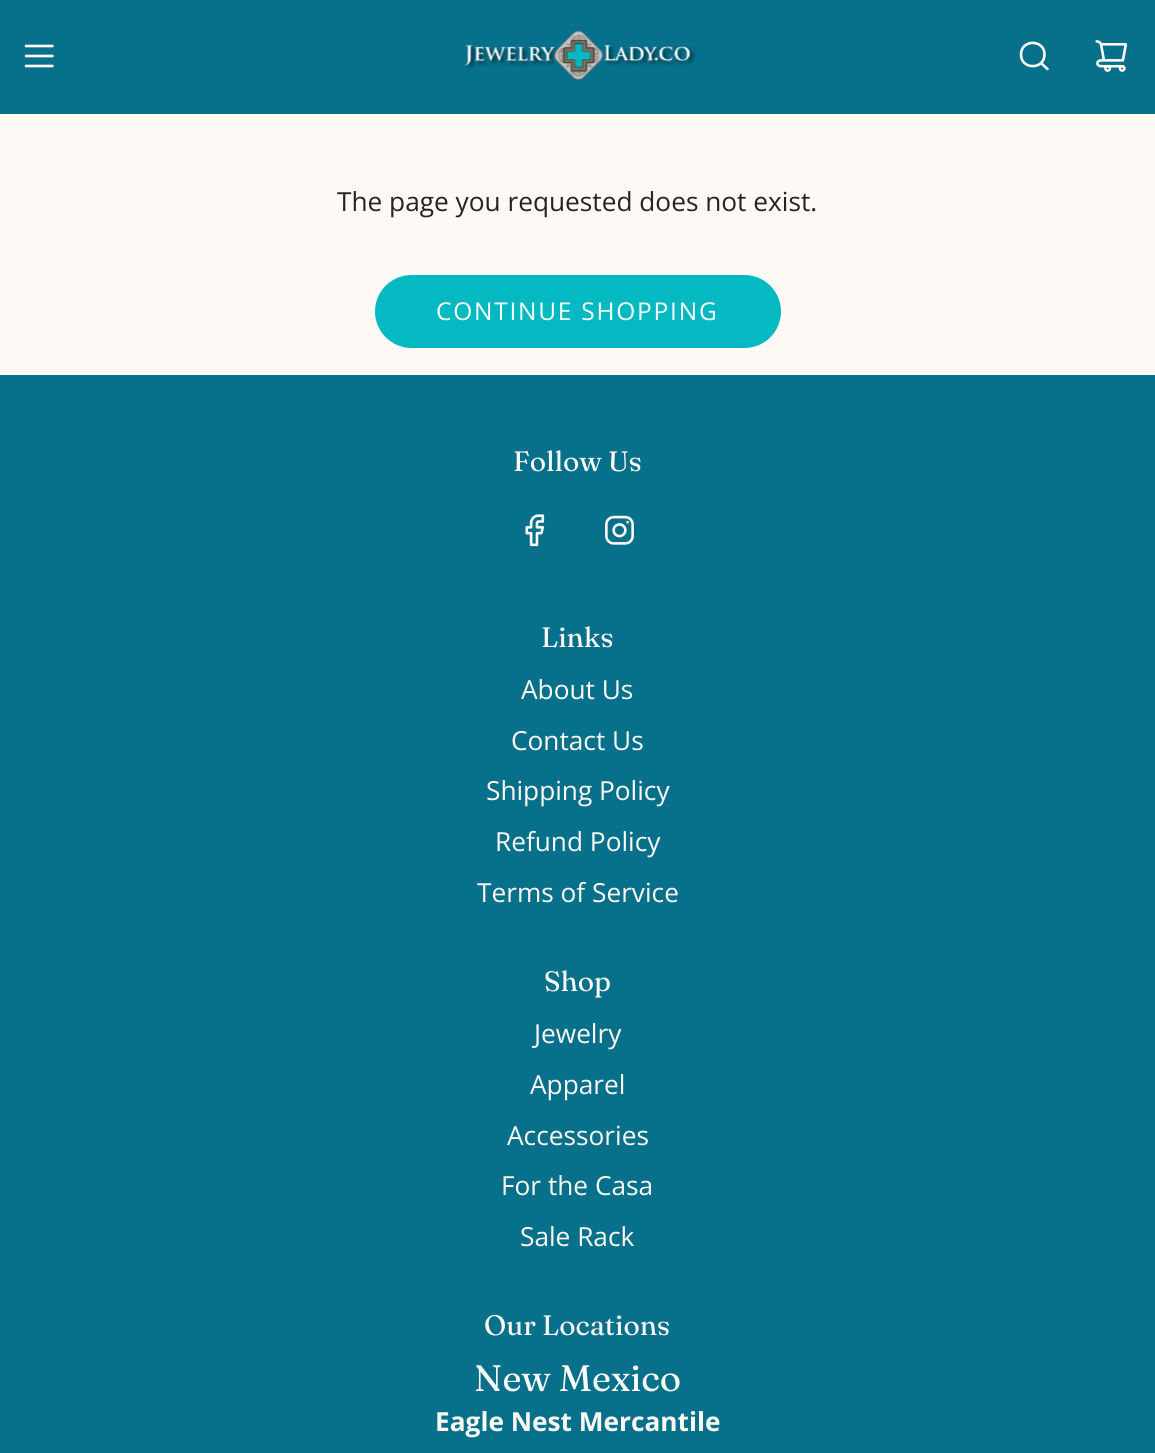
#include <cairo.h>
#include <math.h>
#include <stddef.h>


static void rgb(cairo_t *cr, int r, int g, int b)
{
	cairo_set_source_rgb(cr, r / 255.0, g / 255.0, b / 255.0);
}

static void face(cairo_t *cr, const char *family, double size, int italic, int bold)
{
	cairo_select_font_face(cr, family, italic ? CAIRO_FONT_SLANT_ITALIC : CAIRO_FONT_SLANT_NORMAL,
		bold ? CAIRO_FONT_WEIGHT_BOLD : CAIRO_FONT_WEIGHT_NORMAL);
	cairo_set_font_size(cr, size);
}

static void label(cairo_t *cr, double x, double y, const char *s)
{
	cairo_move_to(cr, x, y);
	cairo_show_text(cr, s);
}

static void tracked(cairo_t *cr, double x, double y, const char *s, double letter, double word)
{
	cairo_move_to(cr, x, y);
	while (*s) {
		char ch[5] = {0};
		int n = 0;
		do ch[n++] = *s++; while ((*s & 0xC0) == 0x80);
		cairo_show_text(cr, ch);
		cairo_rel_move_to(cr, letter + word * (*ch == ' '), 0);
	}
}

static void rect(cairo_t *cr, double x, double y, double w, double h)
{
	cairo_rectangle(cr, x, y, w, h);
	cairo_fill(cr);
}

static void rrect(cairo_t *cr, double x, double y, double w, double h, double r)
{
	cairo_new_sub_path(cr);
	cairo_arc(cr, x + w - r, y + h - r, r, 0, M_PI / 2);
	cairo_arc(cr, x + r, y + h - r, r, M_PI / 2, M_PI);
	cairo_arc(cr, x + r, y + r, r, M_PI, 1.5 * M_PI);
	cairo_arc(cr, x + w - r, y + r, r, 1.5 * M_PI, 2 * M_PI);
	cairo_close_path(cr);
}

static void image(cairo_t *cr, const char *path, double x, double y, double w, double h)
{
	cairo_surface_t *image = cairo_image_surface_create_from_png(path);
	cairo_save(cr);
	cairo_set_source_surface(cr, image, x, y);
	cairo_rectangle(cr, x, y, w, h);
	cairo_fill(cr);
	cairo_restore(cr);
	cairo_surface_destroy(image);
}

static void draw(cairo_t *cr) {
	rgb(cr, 254, 249, 245);
	cairo_paint(cr);
	rgb(cr, 7, 112, 138);
	rect(cr, 0, 0, 1155, 114);
	cairo_new_path(cr);
	cairo_move_to(cr, 26, 46);
	cairo_line_to(cr, 52.5, 46);
	cairo_move_to(cr, 26, 56);
	cairo_line_to(cr, 52.5, 56);
	cairo_move_to(cr, 26, 66);
	cairo_line_to(cr, 52.5, 66);
	rgb(cr, 254, 249, 245);
	cairo_set_line_width(cr, 2.6);
	cairo_set_line_cap(cr, CAIRO_LINE_CAP_ROUND);
	cairo_set_line_join(cr, CAIRO_LINE_JOIN_ROUND);
	cairo_stroke(cr);
	image(cr, "image0.png", 464, 30, 232, 51);
	cairo_new_path(cr);
	cairo_move_to(cr, 1041.5, 63.5);
	cairo_line_to(cr, 1047.5, 69);
	cairo_move_to(cr, 1021, 54.5);
	cairo_curve_to(cr, 1021, 70, 1044.5, 70, 1044.5, 54.5);
	cairo_curve_to(cr, 1044.5, 39, 1021, 39, 1021, 54.5);
	cairo_close_path(cr);
	cairo_stroke(cr);
	image(cr, "image1.png", 1095, 40, 33, 32);
	face(cr, "Open Sans", 26.25, 0, 0);
	rgb(cr, 36, 36, 36);
	label(cr, 337, 211, "The page you requested does not exist.");
	rgb(cr, 4, 185, 194);
	rrect(cr, 375, 275, 406, 73, 36.5);
	cairo_fill(cr);
	face(cr, "Open Sans", 24.5, 0, 0);
	rgb(cr, 255, 255, 255);
	tracked(cr, 436, 320, "CONTINUE SHOPPING", 1.75, 0);
	rgb(cr, 7, 112, 138);
	rect(cr, 0, 375, 1155, 1078);
	face(cr, "Fraunces", 28, 0, 0);
	rgb(cr, 254, 249, 245);
	label(cr, 513, 471, "Follow Us");
	image(cr, "image2.png", 525, 514, 20, 33);
	image(cr, "image3.png", 605, 515, 29, 30);
	label(cr, 541, 647, "Links");
	face(cr, "Open Sans", 26.25, 0, 0);
	label(cr, 521, 699, "About Us");
	label(cr, 511, 750, "Contact Us");
	label(cr, 486, 800, "Shipping Policy");
	label(cr, 495, 851, "Refund Policy");
	label(cr, 477, 902, "Terms of Service");
	face(cr, "Fraunces", 28, 0, 0);
	label(cr, 544, 991, "Shop");
	face(cr, "Open Sans", 26.25, 0, 0);
	label(cr, 534, 1043, "Jewelry");
	label(cr, 530, 1094, "Apparel");
	label(cr, 507, 1145, "Accessories");
	label(cr, 501, 1195, "For the Casa");
	label(cr, 520, 1246, "Sale Rack");
	face(cr, "Fraunces", 28, 0, 0);
	label(cr, 484, 1335, "Our Locations");
	face(cr, "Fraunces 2", 36.75, 0, 0);
	label(cr, 474, 1391, "New Mexico");
	face(cr, "Open Sans", 26.25, 0, 1);
	label(cr, 435, 1431, "Eagle Nest Mercantile");
}

int main(void) {
	cairo_surface_t *surface = cairo_image_surface_create(CAIRO_FORMAT_RGB24, 1155, 1453);
	cairo_t *cr = cairo_create(surface);
	cairo_font_options_t *options = cairo_font_options_create();
	cairo_font_options_set_hint_metrics(options, CAIRO_HINT_METRICS_OFF);
	cairo_font_options_set_hint_style(options, CAIRO_HINT_STYLE_NONE);
	cairo_set_font_options(cr, options);
	cairo_set_miter_limit(cr, 4);
	draw(cr);
	cairo_surface_write_to_png(surface, "render.png");
	cairo_font_options_destroy(options);
	cairo_destroy(cr);
	cairo_surface_destroy(surface);
	return 0;
}
